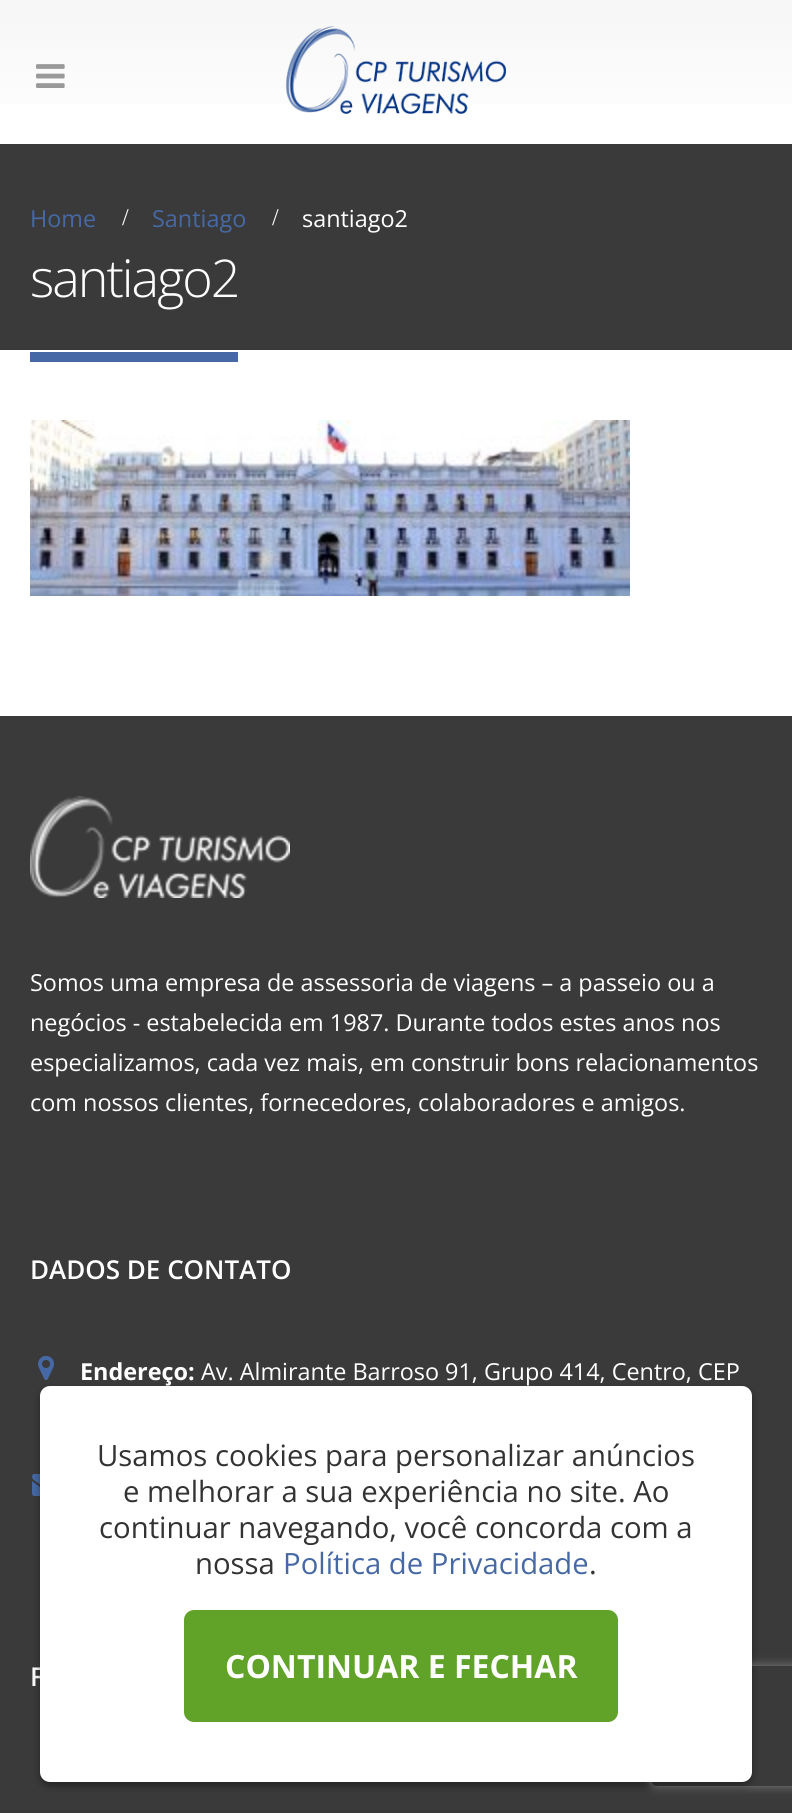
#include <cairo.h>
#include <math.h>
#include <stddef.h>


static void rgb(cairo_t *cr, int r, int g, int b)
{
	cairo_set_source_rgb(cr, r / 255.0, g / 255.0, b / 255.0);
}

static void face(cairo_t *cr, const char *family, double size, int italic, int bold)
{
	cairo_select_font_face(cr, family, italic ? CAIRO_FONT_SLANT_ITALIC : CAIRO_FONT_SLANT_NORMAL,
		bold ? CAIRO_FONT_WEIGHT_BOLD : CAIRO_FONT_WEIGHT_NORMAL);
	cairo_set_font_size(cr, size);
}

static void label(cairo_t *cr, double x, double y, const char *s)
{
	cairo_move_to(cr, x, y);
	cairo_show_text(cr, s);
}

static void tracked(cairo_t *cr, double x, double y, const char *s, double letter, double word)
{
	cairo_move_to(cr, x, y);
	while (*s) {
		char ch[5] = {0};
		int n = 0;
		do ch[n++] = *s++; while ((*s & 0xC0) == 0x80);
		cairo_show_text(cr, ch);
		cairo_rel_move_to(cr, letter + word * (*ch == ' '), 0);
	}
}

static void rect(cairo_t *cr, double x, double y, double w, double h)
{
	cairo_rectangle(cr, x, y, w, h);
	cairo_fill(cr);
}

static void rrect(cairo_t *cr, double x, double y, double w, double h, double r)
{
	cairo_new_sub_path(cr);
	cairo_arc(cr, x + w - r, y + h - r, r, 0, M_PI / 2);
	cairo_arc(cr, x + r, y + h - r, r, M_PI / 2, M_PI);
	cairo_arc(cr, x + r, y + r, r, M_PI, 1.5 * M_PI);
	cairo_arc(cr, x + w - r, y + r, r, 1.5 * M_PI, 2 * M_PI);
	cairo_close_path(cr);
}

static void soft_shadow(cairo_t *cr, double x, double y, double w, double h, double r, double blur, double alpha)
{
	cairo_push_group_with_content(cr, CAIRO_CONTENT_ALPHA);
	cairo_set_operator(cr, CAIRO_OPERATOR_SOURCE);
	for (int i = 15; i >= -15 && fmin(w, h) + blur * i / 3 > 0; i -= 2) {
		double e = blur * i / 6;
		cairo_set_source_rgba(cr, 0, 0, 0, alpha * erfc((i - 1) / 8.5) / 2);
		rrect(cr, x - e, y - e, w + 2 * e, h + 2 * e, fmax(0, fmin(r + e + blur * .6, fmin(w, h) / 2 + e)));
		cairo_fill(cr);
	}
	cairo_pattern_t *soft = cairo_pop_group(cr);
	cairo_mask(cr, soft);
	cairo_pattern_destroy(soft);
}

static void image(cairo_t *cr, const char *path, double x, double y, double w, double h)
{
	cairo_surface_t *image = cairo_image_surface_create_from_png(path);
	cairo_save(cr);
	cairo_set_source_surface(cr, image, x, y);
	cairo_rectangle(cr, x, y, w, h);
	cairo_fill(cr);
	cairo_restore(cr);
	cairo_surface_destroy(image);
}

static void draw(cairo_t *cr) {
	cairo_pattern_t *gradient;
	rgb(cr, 255, 255, 255);
	cairo_paint(cr);
	gradient = cairo_pattern_create_linear(396, 0, 396, 144);
	cairo_pattern_add_color_stop_rgba(gradient, 0, 0.965, 0.965, 0.965, 1);
	cairo_pattern_add_color_stop_rgba(gradient, 1, 1, 1, 1, 1);
	cairo_set_source(cr, gradient);
	cairo_pattern_destroy(gradient);
	rect(cr, 0, 0, 792, 104);
	image(cr, "image0.png", 36, 64, 29, 24);
	image(cr, "image1.png", 286, 26, 220, 88);
	rgb(cr, 58, 58, 58);
	rect(cr, 0, 144, 792, 206);
	face(cr, "Open Sans", 23.4, 0, 0);
	rgb(cr, 70, 105, 165);
	label(cr, 30, 227, "Home");
	face(cr, "Liberation Serif", 24, 0, 0);
	rgb(cr, 255, 255, 255);
	label(cr, 122, 225, "/");
	face(cr, "Open Sans", 23.4, 0, 0);
	rgb(cr, 70, 105, 165);
	label(cr, 152, 227, "Santiago");
	face(cr, "Liberation Serif", 24, 0, 0);
	rgb(cr, 255, 255, 255);
	label(cr, 272, 225, "/");
	face(cr, "Open Sans", 23.4, 0, 0);
	label(cr, 302, 227, "santiago2");
	rgb(cr, 70, 105, 165);
	rect(cr, 30, 352, 208, 10);
	face(cr, "Open Sans Light", 52, 0, 0);
	rgb(cr, 255, 255, 255);
	tracked(cr, 30, 297, "santiago2", -2, 0);
	image(cr, "image2.png", 30, 420, 600, 176);
	rgb(cr, 58, 58, 58);
	rect(cr, 0, 716, 792, 1097);
	image(cr, "image3.png", 30, 796, 260, 102);
	face(cr, "Open Sans", 23.4, 0, 0);
	rgb(cr, 255, 255, 255);
	label(cr, 30, 991, "Somos uma empresa de assessoria de viagens – a passeio ou a");
	label(cr, 30, 1031, "negócios - estabelecida em 1987. Durante todos estes anos nos");
	label(cr, 30, 1071, "especializamos, cada vez mais, em construir bons relacionamentos");
	label(cr, 30, 1111, "com nossos clientes, fornecedores, colaboradores e amigos.");
	face(cr, "Open Sans SemiBold", 26, 0, 0);
	label(cr, 30, 1279, "DADOS DE CONTATO");
	image(cr, "image4.png", 38, 1356, 16, 24);
	face(cr, "Open Sans", 23.4, 0, 1);
	label(cr, 80, 1380, "Endereço:");
	face(cr, "Open Sans", 23.4, 0, 0);
	label(cr, 201, 1380, "Av. Almirante Barroso 91, Grupo 414, Centro, CEP");
	image(cr, "image5.png", 32, 1473, 8, 23);
	face(cr, "Open Sans SemiBold", 26, 0, 0);
	label(cr, 30, 1686, "F");
	rgb(cr, 0, 0, 0);
	soft_shadow(cr, 40, 1390, 712, 396, 10, 4, 0.4);
	cairo_save(cr);
	cairo_set_fill_rule(cr, CAIRO_FILL_RULE_EVEN_ODD);
	cairo_new_path(cr);
	cairo_move_to(cr, 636, 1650);
	cairo_line_to(cr, 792, 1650);
	cairo_line_to(cr, 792, 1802);
	cairo_line_to(cr, 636, 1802);
	cairo_close_path(cr);
	cairo_move_to(cr, 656, 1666);
	cairo_line_to(cr, 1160, 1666);
	cairo_curve_to(cr, 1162, 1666, 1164, 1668, 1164, 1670);
	cairo_line_to(cr, 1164, 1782);
	cairo_curve_to(cr, 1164, 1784, 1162, 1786, 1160, 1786);
	cairo_line_to(cr, 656, 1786);
	cairo_curve_to(cr, 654, 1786, 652, 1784, 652, 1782);
	cairo_line_to(cr, 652, 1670);
	cairo_curve_to(cr, 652, 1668, 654, 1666, 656, 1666);
	cairo_close_path(cr);
	cairo_clip(cr);
	rgb(cr, 128, 128, 128);
	soft_shadow(cr, 652, 1666, 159, 120, 4, 5, 1);
	cairo_restore(cr);
	rgb(cr, 255, 255, 255);
	rrect(cr, 40, 1386, 712, 396, 10);
	cairo_fill(cr);
	face(cr, "Open Sans", 29.3, 0, 0);
	rgb(cr, 51, 51, 51);
	label(cr, 97, 1466, "Usamos cookies para personalizar anúncios");
	label(cr, 123, 1502, "e melhorar a sua experiência no site. Ao");
	label(cr, 99, 1538, "continuar navegando, você concorda com a");
	label(cr, 195, 1574, "nossa");
	rgb(cr, 70, 105, 165);
	label(cr, 283, 1574, "Política de Privacidade");
	rgb(cr, 51, 51, 51);
	label(cr, 589, 1574, ".");
	rgb(cr, 97, 162, 41);
	rrect(cr, 184, 1610, 434, 112, 10);
	cairo_fill(cr);
	face(cr, "Open Sans", 32, 0, 1);
	rgb(cr, 255, 255, 255);
	label(cr, 225, 1678, "CONTINUAR E FECHAR");
}

int main(void) {
	cairo_surface_t *surface = cairo_image_surface_create(CAIRO_FORMAT_RGB24, 792, 1813);
	cairo_t *cr = cairo_create(surface);
	cairo_font_options_t *options = cairo_font_options_create();
	cairo_font_options_set_hint_metrics(options, CAIRO_HINT_METRICS_OFF);
	cairo_font_options_set_hint_style(options, CAIRO_HINT_STYLE_NONE);
	cairo_set_font_options(cr, options);
	cairo_set_miter_limit(cr, 4);
	draw(cr);
	cairo_surface_write_to_png(surface, "render.png");
	cairo_font_options_destroy(options);
	cairo_destroy(cr);
	cairo_surface_destroy(surface);
	return 0;
}
